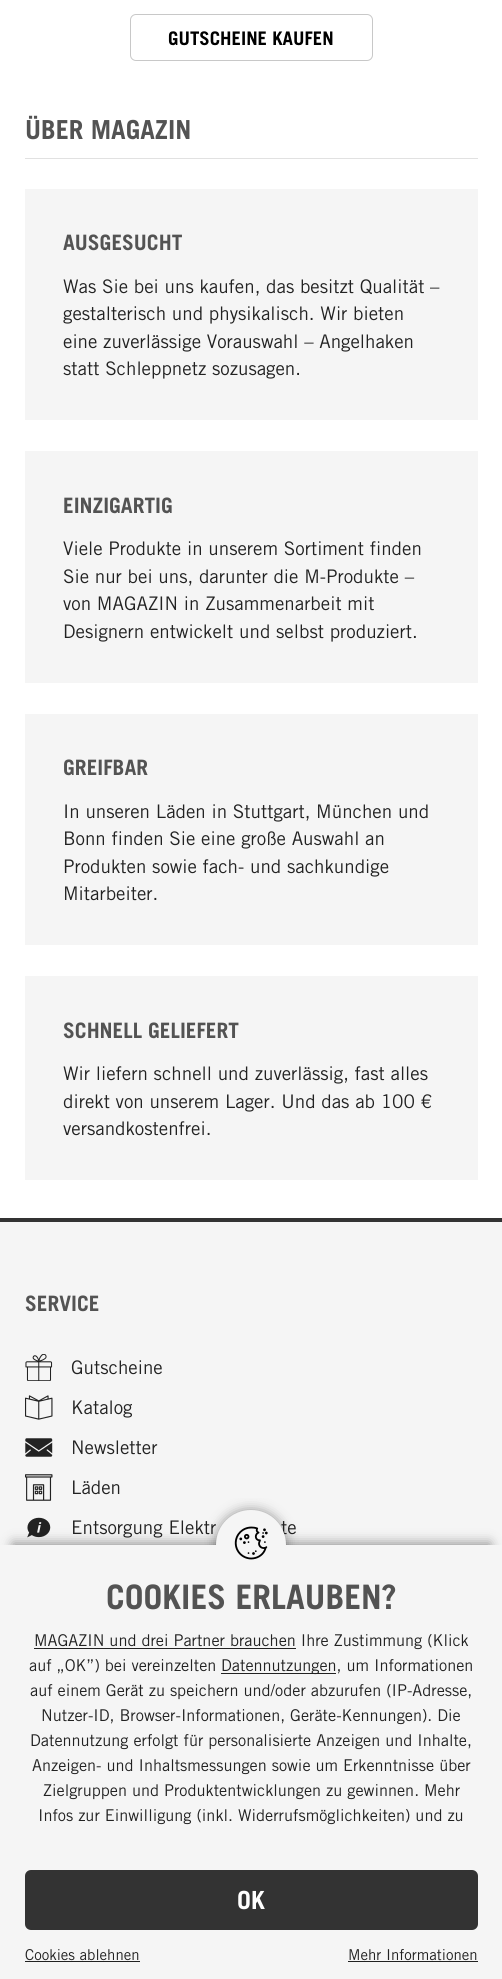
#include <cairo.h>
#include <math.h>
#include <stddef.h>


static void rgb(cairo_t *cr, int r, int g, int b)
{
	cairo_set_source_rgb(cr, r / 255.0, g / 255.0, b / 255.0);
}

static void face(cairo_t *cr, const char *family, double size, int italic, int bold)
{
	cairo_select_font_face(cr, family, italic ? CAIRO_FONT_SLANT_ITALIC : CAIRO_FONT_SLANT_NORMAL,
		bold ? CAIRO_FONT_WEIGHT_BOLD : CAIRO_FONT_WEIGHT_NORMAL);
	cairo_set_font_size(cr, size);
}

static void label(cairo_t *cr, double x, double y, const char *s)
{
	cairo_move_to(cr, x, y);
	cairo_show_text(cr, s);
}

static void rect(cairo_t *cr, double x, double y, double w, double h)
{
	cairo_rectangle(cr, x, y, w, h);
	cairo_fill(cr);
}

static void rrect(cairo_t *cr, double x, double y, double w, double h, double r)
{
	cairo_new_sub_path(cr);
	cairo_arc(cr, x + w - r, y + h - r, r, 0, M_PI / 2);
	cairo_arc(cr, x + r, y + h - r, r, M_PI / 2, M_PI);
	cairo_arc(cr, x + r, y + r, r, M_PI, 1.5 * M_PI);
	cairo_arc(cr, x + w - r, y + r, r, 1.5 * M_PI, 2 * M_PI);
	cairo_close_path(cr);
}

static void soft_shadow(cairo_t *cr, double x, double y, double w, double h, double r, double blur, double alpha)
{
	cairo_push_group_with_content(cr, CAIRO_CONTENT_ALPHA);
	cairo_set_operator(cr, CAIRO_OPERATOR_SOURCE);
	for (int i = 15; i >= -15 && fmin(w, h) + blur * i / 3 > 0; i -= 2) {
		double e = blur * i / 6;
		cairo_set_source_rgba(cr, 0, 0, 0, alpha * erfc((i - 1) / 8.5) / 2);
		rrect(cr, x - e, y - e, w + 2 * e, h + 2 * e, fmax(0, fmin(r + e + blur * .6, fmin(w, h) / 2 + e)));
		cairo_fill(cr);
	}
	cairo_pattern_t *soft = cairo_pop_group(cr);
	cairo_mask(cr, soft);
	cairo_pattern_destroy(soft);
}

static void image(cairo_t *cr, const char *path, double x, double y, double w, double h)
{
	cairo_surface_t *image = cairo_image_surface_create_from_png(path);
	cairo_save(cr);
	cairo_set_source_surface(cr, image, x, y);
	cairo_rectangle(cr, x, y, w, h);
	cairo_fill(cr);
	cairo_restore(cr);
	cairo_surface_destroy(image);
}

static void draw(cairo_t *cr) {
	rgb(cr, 255, 255, 255);
	cairo_paint(cr);
	rrect(cr, 130.5, 14.5, 242, 46, 5.5);
	rgb(cr, 200, 200, 200);
	cairo_set_line_width(cr, 1);
	cairo_stroke(cr);
	face(cr, "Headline", 18.75, 0, 1);
	rgb(cr, 0, 0, 0);
	label(cr, 168, 45, "GUTSCHEINE KAUFEN");
	rgb(cr, 225, 225, 225);
	rect(cr, 25, 158, 453, 1);
	face(cr, "Headline", 26.25, 0, 1);
	rgb(cr, 83, 83, 83);
	label(cr, 25, 139, "ÜBER MAGAZIN");
	rgb(cr, 245, 245, 245);
	rect(cr, 25, 189, 453, 231);
	face(cr, "Headline", 21.25, 0, 1);
	rgb(cr, 83, 83, 83);
	label(cr, 63, 250, "AUSGESUCHT");
	face(cr, "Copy", 18.75, 0, 0);
	rgb(cr, 34, 34, 34);
	label(cr, 63, 293, "Was Sie bei uns kaufen, das besitzt Qualität –");
	label(cr, 63, 320, "gestalterisch und physikalisch. Wir bieten");
	label(cr, 63, 348, "eine zuverlässige Vorauswahl – Angelhaken");
	label(cr, 63, 375, "statt Schleppnetz sozusagen.");
	rgb(cr, 245, 245, 245);
	rect(cr, 25, 451, 453, 232);
	face(cr, "Headline", 21.25, 0, 1);
	rgb(cr, 83, 83, 83);
	label(cr, 63, 513, "EINZIGARTIG");
	face(cr, "Copy", 18.75, 0, 0);
	rgb(cr, 34, 34, 34);
	label(cr, 63, 555, "Viele Produkte in unserem Sortiment finden");
	label(cr, 63, 583, "Sie nur bei uns, darunter die M-Produkte –");
	label(cr, 63, 610, "von MAGAZIN in Zusammenarbeit mit");
	label(cr, 63, 638, "Designern entwickelt und selbst produziert.");
	rgb(cr, 245, 245, 245);
	rect(cr, 25, 714, 453, 231);
	face(cr, "Headline", 21.25, 0, 1);
	rgb(cr, 83, 83, 83);
	label(cr, 63, 775, "GREIFBAR");
	face(cr, "Copy", 18.75, 0, 0);
	rgb(cr, 34, 34, 34);
	label(cr, 63, 818, "In unseren Läden in Stuttgart, München und");
	label(cr, 63, 845, "Bonn finden Sie eine große Auswahl an");
	label(cr, 63, 873, "Produkten sowie fach- und sachkundige");
	label(cr, 63, 900, "Mitarbeiter.");
	rgb(cr, 245, 245, 245);
	rect(cr, 25, 976, 453, 204);
	face(cr, "Headline", 21.25, 0, 1);
	rgb(cr, 83, 83, 83);
	label(cr, 63, 1038, "SCHNELL GELIEFERT");
	face(cr, "Copy", 18.75, 0, 0);
	rgb(cr, 34, 34, 34);
	label(cr, 63, 1080, "Wir liefern schnell und zuverlässig, fast alles");
	label(cr, 63, 1108, "direkt von unserem Lager. Und das ab 100 €");
	label(cr, 63, 1135, "versandkostenfrei.");
	rgb(cr, 245, 245, 245);
	rect(cr, 0, 1222, 502, 323);
	rgb(cr, 51, 51, 51);
	rect(cr, 0, 1218, 502, 4);
	face(cr, "Headline", 21.25, 0, 1);
	rgb(cr, 83, 83, 83);
	label(cr, 25, 1311, "SERVICE");
	image(cr, "image0.png", 25, 1354, 28, 27);
	face(cr, "Copy", 18.75, 0, 0);
	rgb(cr, 34, 34, 34);
	label(cr, 71, 1374, "Gutscheine");
	image(cr, "image1.png", 25, 1395, 28, 25);
	label(cr, 71, 1414, "Katalog");
	image(cr, "image2.png", 25, 1438, 28, 19);
	label(cr, 71, 1454, "Newsletter");
	image(cr, "image3.png", 25, 1474, 28, 27);
	label(cr, 71, 1494, "Läden");
	image(cr, "image4.png", 27, 1517, 24, 21);
	label(cr, 71, 1534, "Entsorgung Elektr");
	label(cr, 281, 1534, "te");
	rgb(cr, 0, 0, 0);
	soft_shadow(cr, 13, 1543, 477, 410, 0, 6, 0.4);
	rgb(cr, 245, 245, 245);
	rect(cr, 0, 1545, 502, 434);
	cairo_save(cr);
	cairo_rectangle(cr, 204, 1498, 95, 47);
	cairo_clip(cr);
	rgb(cr, 0, 0, 0);
	soft_shadow(cr, 216, 1510, 70, 70, 35, 6, 0.4);
	cairo_restore(cr);
	cairo_new_path(cr);
	cairo_move_to(cr, 251, 1510);
	cairo_curve_to(cr, 270.5, 1510, 286, 1525.5, 286, 1545);
	cairo_line_to(cr, 216, 1545);
	cairo_curve_to(cr, 216, 1525.5, 231.5, 1510, 251, 1510);
	cairo_close_path(cr);
	cairo_fill(cr);
	image(cr, "image5.png", 234, 1526, 34, 34);
	face(cr, "Headline", 33.75, 0, 1);
	rgb(cr, 83, 83, 83);
	label(cr, 106, 1609, "COOKIES ERLAUBEN?");
	rgb(cr, 34, 34, 34);
	rect(cr, 34, 1648, 262, 1);
	face(cr, "Copy", 16.25, 0, 0);
	label(cr, 34, 1646, "MAGAZIN und drei Partner brauchen Ihre Zustimmung (Klick");
	label(cr, 29, 1671, "auf „OK”) bei vereinzelten");
	rect(cr, 221, 1673, 115, 1);
	label(cr, 221, 1671, "Datennutzungen, um Informationen");
	label(cr, 30, 1696, "auf einem Gerät zu speichern und/oder abzurufen (IP-Adresse,");
	label(cr, 41, 1721, "Nutzer-ID, Browser-Informationen, Geräte-Kennungen). Die");
	label(cr, 30, 1746, "Datennutzung erfolgt für personalisierte Anzeigen und Inhalte,");
	label(cr, 32, 1771, "Anzeigen- und Inhaltsmessungen sowie um Erkenntnisse über");
	label(cr, 43, 1796, "Zielgruppen und Produktentwicklungen zu gewinnen. Mehr");
	label(cr, 38, 1821, "Infos zur Einwilligung (inkl. Widerrufsmöglichkeiten) und zu");
	rgb(cr, 51, 51, 51);
	rrect(cr, 25, 1870, 453, 60, 6);
	cairo_fill(cr);
	face(cr, "Headline", 25, 0, 1);
	rgb(cr, 255, 255, 255);
	label(cr, 237, 1909, "OK");
	face(cr, "Copy", 15, 0, 0);
	rgb(cr, 34, 34, 34);
	label(cr, 25, 1960, "Cookies ablehnen");
	rect(cr, 25, 1961, 115, 1);
	label(cr, 348, 1960, "Mehr Informationen");
	rect(cr, 348, 1961, 130, 1);
}

int main(void) {
	cairo_surface_t *surface = cairo_image_surface_create(CAIRO_FORMAT_RGB24, 502, 1979);
	cairo_t *cr = cairo_create(surface);
	cairo_font_options_t *options = cairo_font_options_create();
	cairo_font_options_set_hint_metrics(options, CAIRO_HINT_METRICS_OFF);
	cairo_font_options_set_hint_style(options, CAIRO_HINT_STYLE_NONE);
	cairo_set_font_options(cr, options);
	cairo_set_miter_limit(cr, 4);
	draw(cr);
	cairo_surface_write_to_png(surface, "render.png");
	cairo_font_options_destroy(options);
	cairo_destroy(cr);
	cairo_surface_destroy(surface);
	return 0;
}
